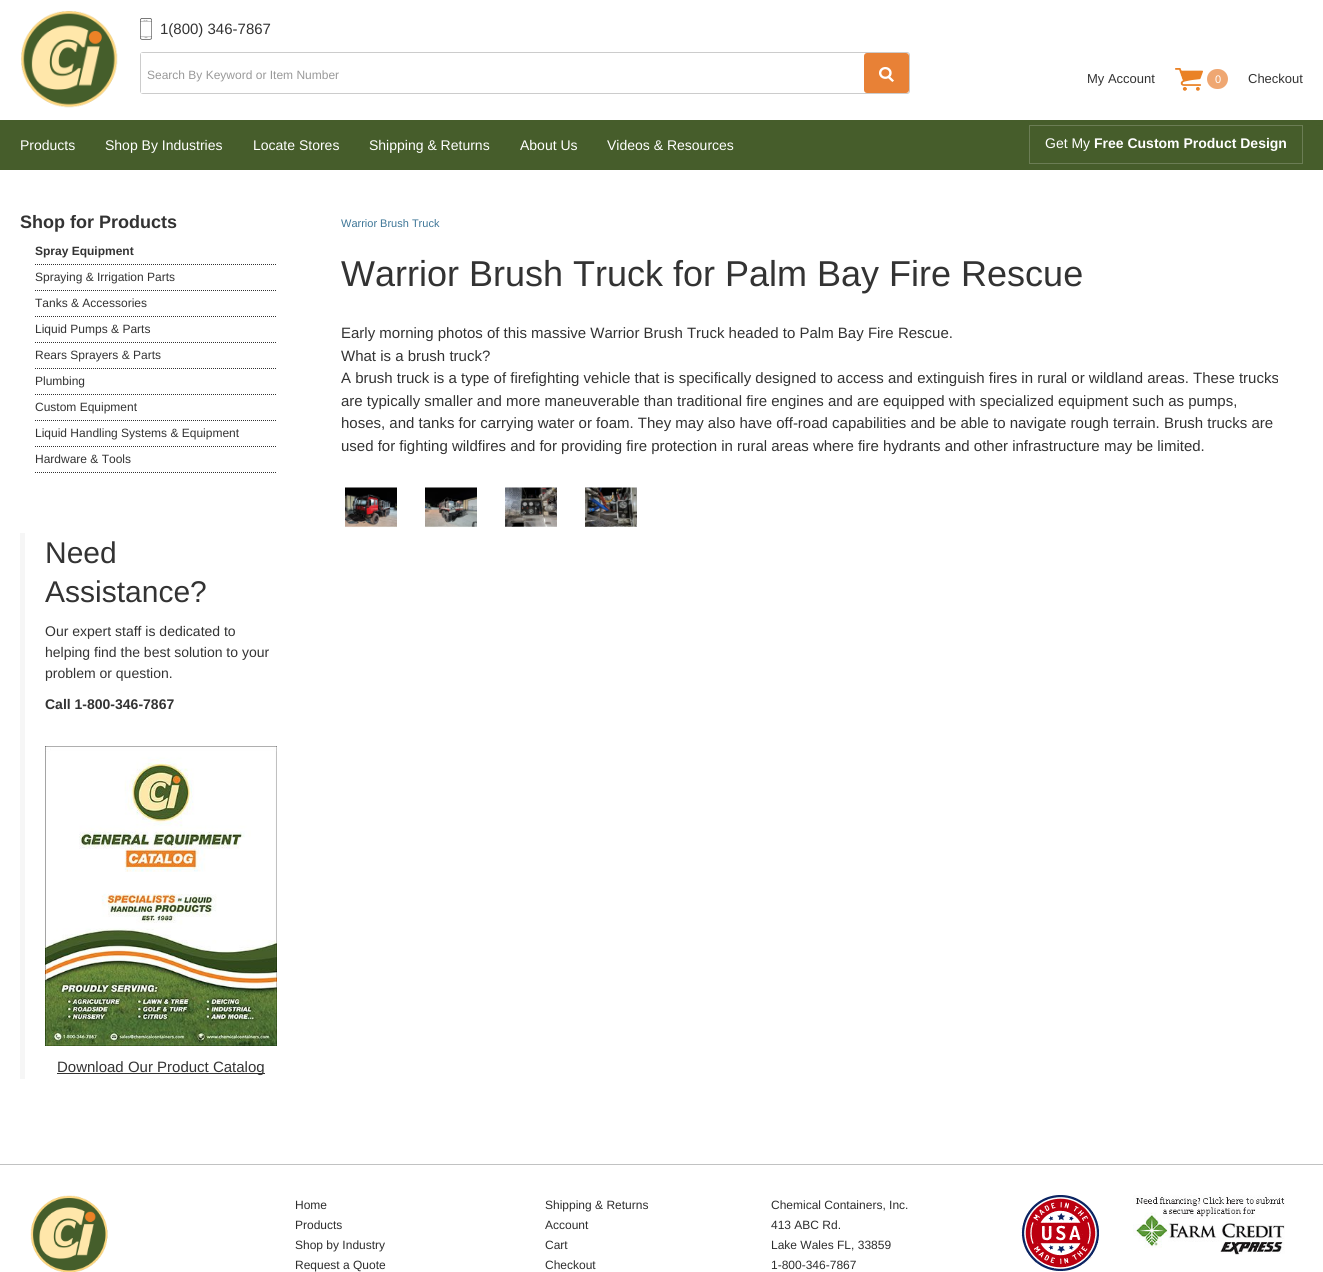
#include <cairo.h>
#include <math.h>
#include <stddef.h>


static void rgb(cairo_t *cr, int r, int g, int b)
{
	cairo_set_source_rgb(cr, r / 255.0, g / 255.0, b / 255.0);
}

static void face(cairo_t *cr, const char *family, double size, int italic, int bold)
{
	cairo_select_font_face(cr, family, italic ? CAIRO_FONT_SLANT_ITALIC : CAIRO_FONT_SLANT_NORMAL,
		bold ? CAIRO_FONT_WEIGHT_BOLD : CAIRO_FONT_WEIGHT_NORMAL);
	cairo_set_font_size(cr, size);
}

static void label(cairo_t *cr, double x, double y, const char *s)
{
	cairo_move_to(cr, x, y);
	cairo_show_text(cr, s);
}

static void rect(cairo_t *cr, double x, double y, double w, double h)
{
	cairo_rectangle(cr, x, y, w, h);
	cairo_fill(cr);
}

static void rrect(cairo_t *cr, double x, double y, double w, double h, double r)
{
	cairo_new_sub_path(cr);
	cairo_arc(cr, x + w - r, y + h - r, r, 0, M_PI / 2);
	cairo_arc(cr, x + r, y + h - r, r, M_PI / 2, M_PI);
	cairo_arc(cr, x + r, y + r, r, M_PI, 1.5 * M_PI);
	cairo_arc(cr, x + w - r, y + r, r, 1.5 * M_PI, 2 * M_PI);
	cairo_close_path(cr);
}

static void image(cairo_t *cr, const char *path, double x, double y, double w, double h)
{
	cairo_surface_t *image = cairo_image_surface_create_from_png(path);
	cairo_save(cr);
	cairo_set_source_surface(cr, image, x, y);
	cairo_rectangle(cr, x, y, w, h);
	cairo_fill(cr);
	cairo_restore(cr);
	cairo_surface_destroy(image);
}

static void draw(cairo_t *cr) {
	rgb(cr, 255, 255, 255);
	cairo_paint(cr);
	image(cr, "image0.png", 21, 11, 97, 97);
	image(cr, "image1.png", 140, 18, 12, 22);
	face(cr, "Liberation Sans", 15, 0, 0);
	rgb(cr, 51, 51, 51);
	label(cr, 160, 34, "1(800) 346-7867");
	rrect(cr, 140.5, 52.5, 769, 41, 2.5);
	rgb(cr, 204, 204, 204);
	cairo_set_line_width(cr, 1);
	cairo_stroke(cr);
	rgb(cr, 255, 255, 255);
	rect(cr, 141, 53, 2, 40);
	face(cr, "Liberation Sans", 12, 0, 0);
	rgb(cr, 153, 153, 153);
	label(cr, 147, 79, "Search By Keyword or Item Number");
	rgb(cr, 232, 129, 54);
	rrect(cr, 864, 53, 45, 40, 3);
	cairo_fill(cr);
	image(cr, "image2.png", 879, 67, 15, 15);
	rgb(cr, 70, 93, 43);
	rect(cr, 0, 120, 1323, 50);
	face(cr, "Liberation Sans", 13, 0, 0);
	rgb(cr, 51, 51, 51);
	label(cr, 1087, 83, "My Account");
	image(cr, "image3.png", 1175, 68, 28, 23);
	rgb(cr, 239, 167, 114);
	rrect(cr, 1207, 69, 21, 20, 10);
	cairo_fill(cr);
	face(cr, "Liberation Sans", 11, 0, 0);
	rgb(cr, 255, 255, 255);
	label(cr, 1215, 83, "0");
	face(cr, "Liberation Sans", 13, 0, 0);
	rgb(cr, 51, 51, 51);
	label(cr, 1248, 83, "Checkout");
	face(cr, "Liberation Sans", 14, 0, 0);
	rgb(cr, 255, 255, 255);
	label(cr, 20, 150, "Products");
	label(cr, 105, 150, "Shop By Industries");
	label(cr, 253, 150, "Locate Stores");
	label(cr, 369, 150, "Shipping & Returns");
	label(cr, 520, 150, "About Us");
	label(cr, 607, 150, "Videos & Resources");
	cairo_rectangle(cr, 1029.5, 125.5, 273, 38);
	rgb(cr, 107, 125, 85);
	cairo_stroke(cr);
	rgb(cr, 255, 255, 255);
	label(cr, 1045, 148, "Get My");
	face(cr, "Liberation Sans", 14, 0, 1);
	label(cr, 1094, 148, "Free Custom Product Design");
	face(cr, "Liberation Sans", 18, 0, 1);
	rgb(cr, 51, 51, 51);
	label(cr, 20, 228, "Shop for Products");
	cairo_new_path(cr);
	cairo_move_to(cr, 35, 264.5);
	cairo_line_to(cr, 277, 264.5);
	cairo_set_dash(cr, (double[]){1, 1}, 2, 0);
	cairo_stroke(cr);
	face(cr, "Liberation Sans", 12, 0, 1);
	label(cr, 35, 255, "Spray Equipment");
	cairo_new_path(cr);
	cairo_move_to(cr, 35, 290.5);
	cairo_line_to(cr, 277, 290.5);
	cairo_stroke(cr);
	face(cr, "Liberation Sans", 12, 0, 0);
	label(cr, 35, 281, "Spraying & Irrigation Parts");
	cairo_new_path(cr);
	cairo_move_to(cr, 35, 316.5);
	cairo_line_to(cr, 277, 316.5);
	cairo_stroke(cr);
	label(cr, 35, 307, "Tanks & Accessories");
	cairo_new_path(cr);
	cairo_move_to(cr, 35, 342.5);
	cairo_line_to(cr, 277, 342.5);
	cairo_stroke(cr);
	label(cr, 35, 333, "Liquid Pumps & Parts");
	cairo_new_path(cr);
	cairo_move_to(cr, 35, 368.5);
	cairo_line_to(cr, 277, 368.5);
	cairo_stroke(cr);
	label(cr, 35, 359, "Rears Sprayers & Parts");
	cairo_new_path(cr);
	cairo_move_to(cr, 35, 394.5);
	cairo_line_to(cr, 277, 394.5);
	cairo_stroke(cr);
	label(cr, 35, 385, "Plumbing");
	cairo_new_path(cr);
	cairo_move_to(cr, 35, 420.5);
	cairo_line_to(cr, 277, 420.5);
	cairo_stroke(cr);
	label(cr, 35, 411, "Custom Equipment");
	cairo_new_path(cr);
	cairo_move_to(cr, 35, 446.5);
	cairo_line_to(cr, 277, 446.5);
	cairo_stroke(cr);
	label(cr, 35, 437, "Liquid Handling Systems & Equipment");
	cairo_new_path(cr);
	cairo_move_to(cr, 35, 472.5);
	cairo_line_to(cr, 277, 472.5);
	cairo_stroke(cr);
	label(cr, 35, 463, "Hardware & Tools");
	rgb(cr, 246, 246, 246);
	rect(cr, 20, 533, 5, 546);
	face(cr, "Liberation Sans", 30, 0, 0);
	rgb(cr, 51, 51, 51);
	label(cr, 45, 563, "Need");
	label(cr, 45, 602, "Assistance?");
	face(cr, "Liberation Sans", 14, 0, 0);
	label(cr, 45, 636, "Our expert staff is dedicated to");
	label(cr, 45, 657, "helping find the best solution to your");
	label(cr, 45, 678, "problem or question.");
	face(cr, "Liberation Sans", 14, 0, 1);
	label(cr, 45, 709, "Call 1-800-346-7867");
	image(cr, "image4.png", 45, 746, 232, 300);
	rect(cr, 57, 1073, 208, 1);
	face(cr, "Liberation Sans", 15, 0, 0);
	label(cr, 57, 1072, "Download Our Product Catalog");
	face(cr, "Liberation Sans", 11, 0, 0);
	rgb(cr, 62, 118, 151);
	label(cr, 341, 227, "Warrior Brush Truck");
	face(cr, "Liberation Sans", 36, 0, 0);
	rgb(cr, 51, 51, 51);
	label(cr, 341, 286, "Warrior Brush Truck for Palm Bay Fire Rescue");
	face(cr, "Liberation Sans", 15, 0, 0);
	label(cr, 341, 338, "Early morning photos of this massive Warrior Brush Truck headed to Palm Bay Fire Rescue.");
	label(cr, 341, 361, "What is a brush truck?");
	label(cr, 341, 383, "A brush truck is a type of firefighting vehicle that is specifically designed to access and extinguish fires in rural or wildland areas. These trucks");
	label(cr, 341, 406, "are typically smaller and more maneuverable than traditional fire engines and are equipped with specialized equipment such as pumps,");
	label(cr, 341, 428, "hoses, and tanks for carrying water or foam. They may also have off-road capabilities and be able to navigate rough terrain. Brush trucks are");
	label(cr, 341, 451, "used for fighting wildfires and for providing fire protection in rural areas where fire hydrants and other infrastructure may be limited.");
	image(cr, "image5.png", 345, 487, 52, 41);
	image(cr, "image6.png", 425, 487, 52, 41);
	image(cr, "image7.png", 505, 486, 52, 41);
	image(cr, "image8.png", 585, 487, 52, 40);
	rgb(cr, 193, 194, 194);
	rect(cr, 0, 1164, 1323, 1);
	image(cr, "image9.png", 30, 1195, 78, 77);
	face(cr, "Liberation Sans", 12, 0, 0);
	rgb(cr, 45, 45, 45);
	label(cr, 295, 1209, "Home");
	label(cr, 295, 1229, "Products");
	label(cr, 295, 1249, "Shop by Industry");
	label(cr, 295, 1269, "Request a Quote");
	label(cr, 545, 1209, "Shipping & Returns");
	label(cr, 545, 1229, "Account");
	label(cr, 545, 1249, "Cart");
	label(cr, 545, 1269, "Checkout");
	label(cr, 771, 1209, "Chemical Containers, Inc.");
	label(cr, 771, 1229, "413 ABC Rd.");
	label(cr, 771, 1249, "Lake Wales FL, 33859");
	label(cr, 771, 1269, "1-800-346-7867");
	image(cr, "image10.png", 1021, 1195, 78, 76);
	image(cr, "image11.png", 1133, 1195, 152, 60);
}

int main(void) {
	cairo_surface_t *surface = cairo_image_surface_create(CAIRO_FORMAT_RGB24, 1323, 1272);
	cairo_t *cr = cairo_create(surface);
	cairo_font_options_t *options = cairo_font_options_create();
	cairo_font_options_set_hint_metrics(options, CAIRO_HINT_METRICS_OFF);
	cairo_font_options_set_hint_style(options, CAIRO_HINT_STYLE_NONE);
	cairo_set_font_options(cr, options);
	cairo_set_miter_limit(cr, 4);
	draw(cr);
	cairo_surface_write_to_png(surface, "render.png");
	cairo_font_options_destroy(options);
	cairo_destroy(cr);
	cairo_surface_destroy(surface);
	return 0;
}
